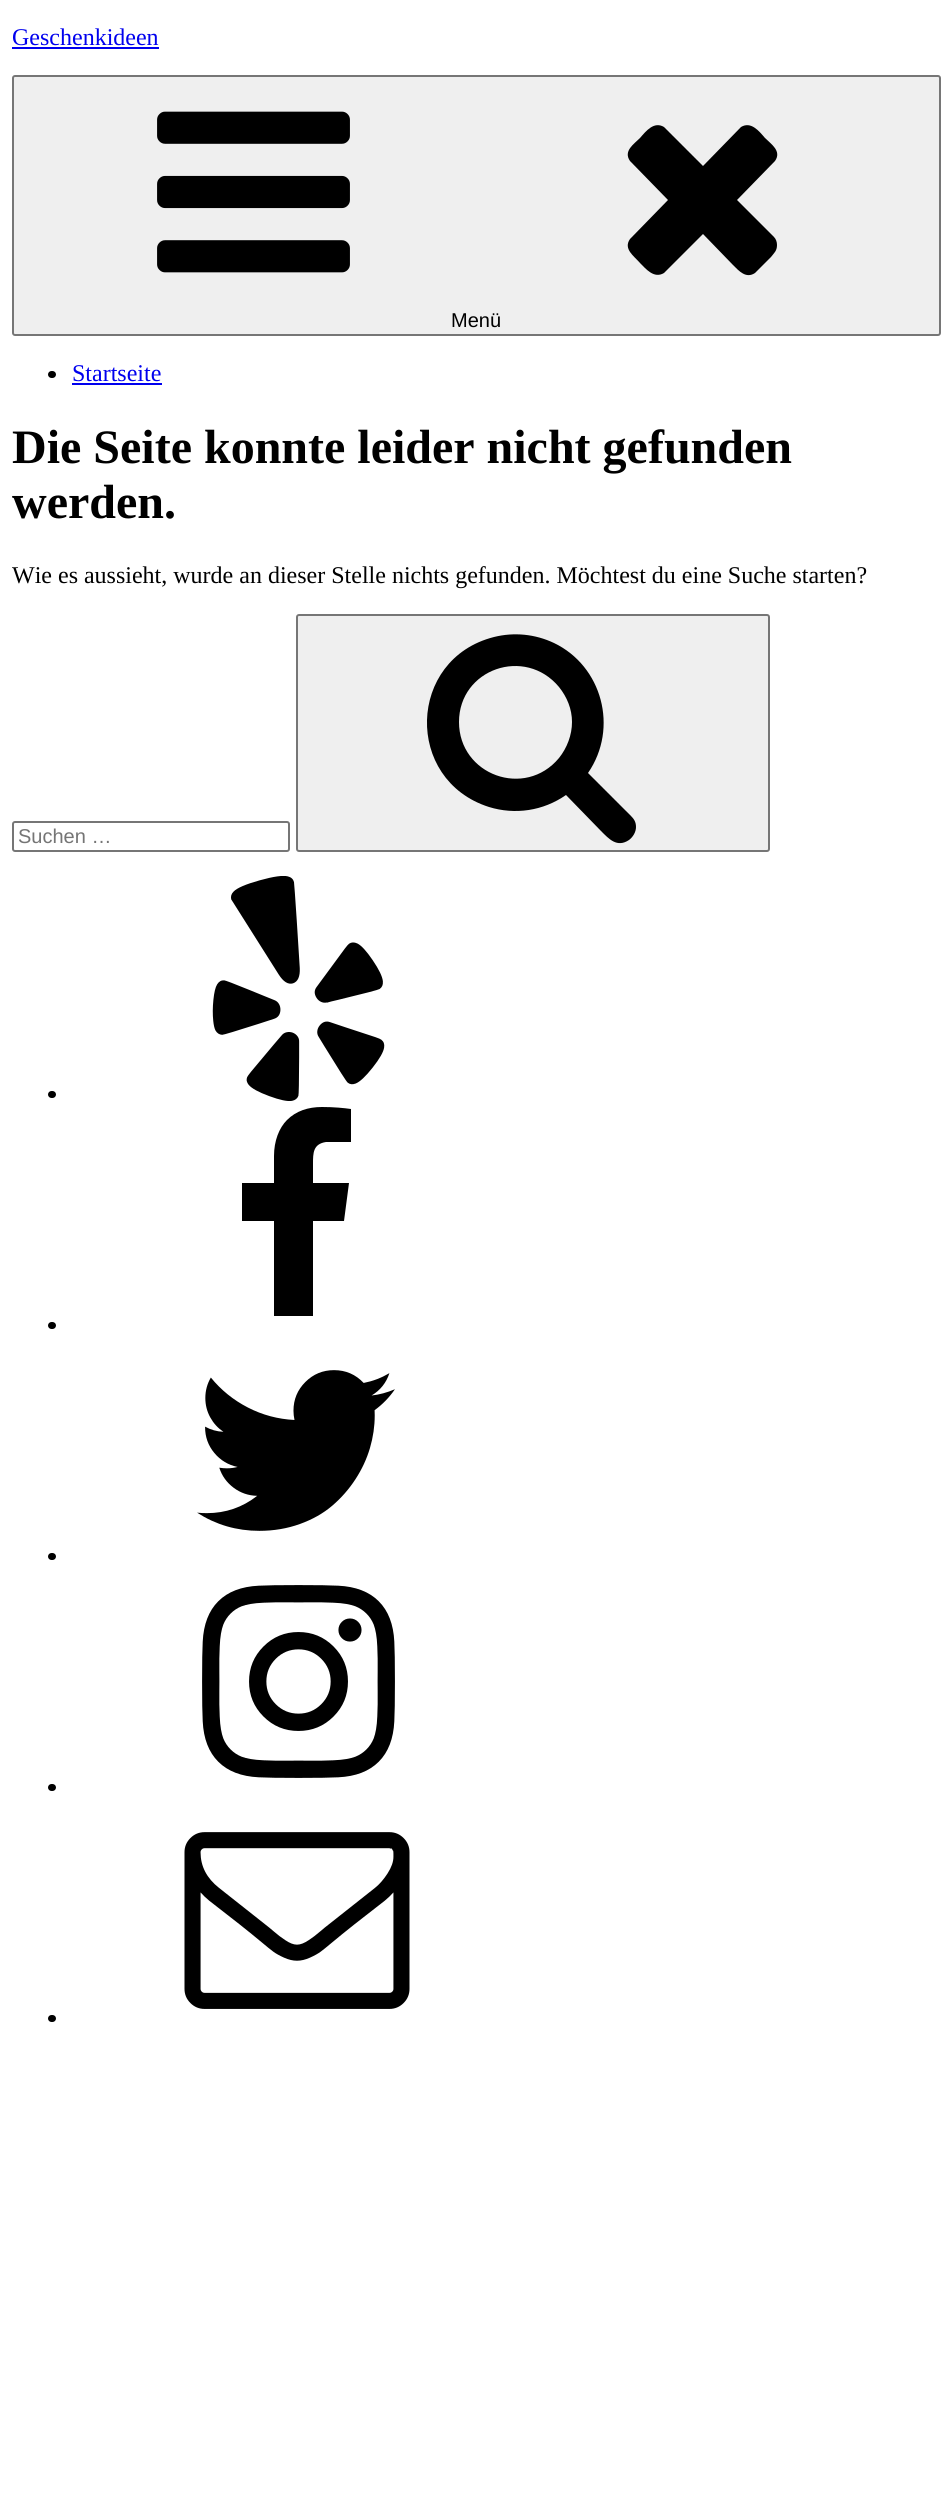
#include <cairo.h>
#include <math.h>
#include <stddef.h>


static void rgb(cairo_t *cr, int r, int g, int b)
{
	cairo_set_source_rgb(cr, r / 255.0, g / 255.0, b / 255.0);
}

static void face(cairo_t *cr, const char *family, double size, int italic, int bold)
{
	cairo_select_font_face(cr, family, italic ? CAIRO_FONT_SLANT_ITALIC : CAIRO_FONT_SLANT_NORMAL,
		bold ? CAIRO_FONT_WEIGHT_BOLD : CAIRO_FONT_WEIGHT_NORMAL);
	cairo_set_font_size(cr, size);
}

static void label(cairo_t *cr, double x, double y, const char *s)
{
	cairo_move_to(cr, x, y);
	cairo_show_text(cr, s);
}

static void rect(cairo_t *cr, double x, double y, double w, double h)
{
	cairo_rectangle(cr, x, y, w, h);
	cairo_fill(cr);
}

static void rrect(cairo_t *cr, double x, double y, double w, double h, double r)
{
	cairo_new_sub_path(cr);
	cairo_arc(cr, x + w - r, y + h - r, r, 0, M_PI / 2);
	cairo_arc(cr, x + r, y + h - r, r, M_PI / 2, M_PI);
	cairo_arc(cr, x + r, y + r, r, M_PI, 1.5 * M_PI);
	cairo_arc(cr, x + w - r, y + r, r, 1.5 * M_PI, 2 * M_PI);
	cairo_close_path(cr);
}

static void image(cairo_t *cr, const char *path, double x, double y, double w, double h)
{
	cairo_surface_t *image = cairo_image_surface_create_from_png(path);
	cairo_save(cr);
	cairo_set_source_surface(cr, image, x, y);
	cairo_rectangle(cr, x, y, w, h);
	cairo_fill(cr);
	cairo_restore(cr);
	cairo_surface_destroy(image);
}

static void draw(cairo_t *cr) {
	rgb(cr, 255, 255, 255);
	cairo_paint(cr);
	face(cr, "Liberation Serif", 24, 0, 0);
	rgb(cr, 0, 0, 238);
	label(cr, 12, 45, "Geschenkideen");
	rect(cr, 12, 47, 147, 2);
	rgb(cr, 239, 239, 239);
	rrect(cr, 13, 76, 927, 259, 2);
	cairo_fill_preserve(cr);
	rgb(cr, 118, 118, 118);
	cairo_stroke(cr);
	image(cr, "image0.png", 157, 111, 193, 162);
	rgb(cr, 0, 0, 0);
	cairo_new_path(cr);
	cairo_move_to(cr, 777, 245);
	cairo_curve_to(cr, 777, 251, 774, 253, 771, 257);
	cairo_line_to(cr, 755, 273);
	cairo_curve_to(cr, 746, 279, 739, 271, 733, 265);
	cairo_line_to(cr, 703, 234);
	cairo_line_to(cr, 664, 273);
	cairo_curve_to(cr, 654, 279, 646, 269, 640, 263);
	cairo_curve_to(cr, 634, 256, 623, 249, 630, 239);
	cairo_line_to(cr, 668, 200);
	cairo_line_to(cr, 630, 161);
	cairo_curve_to(cr, 623, 151, 634, 144, 640, 138);
	cairo_curve_to(cr, 646, 131, 654, 121, 664, 127);
	cairo_line_to(cr, 703, 166);
	cairo_line_to(cr, 741, 127);
	cairo_curve_to(cr, 751, 121, 759, 131, 765, 138);
	cairo_curve_to(cr, 771, 144, 782, 151, 775, 161);
	cairo_line_to(cr, 737, 200);
	cairo_line_to(cr, 774, 237);
	cairo_curve_to(cr, 776, 239, 777, 242, 777, 245);
	cairo_close_path(cr);
	cairo_fill(cr);
	face(cr, "Liberation Sans", 20, 0, 0);
	label(cr, 451, 327, "Menü");
	rrect(cr, 48, 371, 8, 7, 3.5);
	cairo_fill(cr);
	face(cr, "Liberation Serif", 24, 0, 0);
	rgb(cr, 0, 0, 238);
	label(cr, 72, 381, "Startseite");
	rect(cr, 72, 383, 90, 2);
	face(cr, "Liberation Serif", 48, 0, 1);
	rgb(cr, 0, 0, 0);
	label(cr, 12, 463, "Die Seite konnte leider nicht gefunden");
	label(cr, 12, 518, "werden.");
	face(cr, "Liberation Serif", 24, 0, 0);
	label(cr, 12, 583, "Wie es aussieht, wurde an dieser Stelle nichts gefunden. Möchtest du eine Suche starten?");
	rrect(cr, 13, 822, 276, 29, 2);
	rgb(cr, 118, 118, 118);
	cairo_stroke(cr);
	face(cr, "Liberation Sans", 20, 0, 0);
	rgb(cr, 117, 117, 117);
	label(cr, 18, 843, "Suchen …");
	rgb(cr, 239, 239, 239);
	rrect(cr, 297, 615, 472, 236, 2);
	cairo_fill_preserve(cr);
	rgb(cr, 118, 118, 118);
	cairo_stroke(cr);
	rgb(cr, 0, 0, 0);
	cairo_new_path(cr);
	cairo_move_to(cr, 572, 722);
	cairo_curve_to(cr, 572, 709, 567, 697, 559, 687);
	cairo_curve_to(cr, 525, 646, 459, 669, 459, 722);
	cairo_curve_to(cr, 459, 775, 525, 799, 559, 758);
	cairo_curve_to(cr, 567, 748, 572, 735, 572, 722);
	cairo_close_path(cr);
	cairo_move_to(cr, 636, 827);
	cairo_curve_to(cr, 636, 832, 633, 837, 629, 840);
	cairo_curve_to(cr, 617, 848, 609, 839, 601, 831);
	cairo_line_to(cr, 566, 795);
	cairo_curve_to(cr, 543, 811, 515, 815, 489, 807);
	cairo_curve_to(cr, 404, 780, 407, 659, 494, 637);
	cairo_curve_to(cr, 514, 632, 535, 634, 554, 643);
	cairo_curve_to(cr, 602, 666, 619, 728, 588, 773);
	cairo_line_to(cr, 631, 816);
	cairo_curve_to(cr, 634, 819, 636, 822, 636, 827);
	cairo_close_path(cr);
	cairo_fill(cr);
	rrect(cr, 48, 1091, 8, 7, 3.5);
	cairo_fill(cr);
	image(cr, "image1.png", 212, 876, 173, 225);
	cairo_new_path(cr);
	cairo_move_to(cr, 351, 1109);
	cairo_line_to(cr, 351, 1142);
	cairo_line_to(cr, 326, 1142);
	cairo_curve_to(cr, 313, 1144, 313, 1153, 313, 1164);
	cairo_line_to(cr, 313, 1183);
	cairo_line_to(cr, 349, 1183);
	cairo_line_to(cr, 344, 1221);
	cairo_line_to(cr, 313, 1221);
	cairo_line_to(cr, 313, 1316);
	cairo_line_to(cr, 274, 1316);
	cairo_line_to(cr, 274, 1221);
	cairo_line_to(cr, 242, 1221);
	cairo_line_to(cr, 242, 1183);
	cairo_line_to(cr, 274, 1183);
	cairo_line_to(cr, 274, 1156);
	cairo_curve_to(cr, 274, 1141, 279, 1128, 287, 1120);
	cairo_curve_to(cr, 296, 1111, 308, 1107, 322, 1107);
	cairo_curve_to(cr, 334, 1107, 344, 1108, 351, 1109);
	cairo_close_path(cr);
	cairo_fill(cr);
	rrect(cr, 48, 1322, 8, 7, 3.5);
	cairo_fill(cr);
	image(cr, "image2.png", 197, 1370, 198, 161);
	rrect(cr, 48, 1553, 8, 7, 3.5);
	cairo_fill(cr);
	image(cr, "image3.png", 202, 1585, 193, 193);
	rrect(cr, 48, 1784, 8, 7, 3.5);
	cairo_fill(cr);
	image(cr, "image4.png", 184, 1832, 226, 177);
	rrect(cr, 48, 2015, 8, 7, 3.5);
	cairo_fill(cr);
}

int main(void) {
	cairo_surface_t *surface = cairo_image_surface_create(CAIRO_FORMAT_RGB24, 952, 2501);
	cairo_t *cr = cairo_create(surface);
	cairo_font_options_t *options = cairo_font_options_create();
	cairo_font_options_set_hint_metrics(options, CAIRO_HINT_METRICS_OFF);
	cairo_font_options_set_hint_style(options, CAIRO_HINT_STYLE_NONE);
	cairo_set_font_options(cr, options);
	cairo_set_miter_limit(cr, 4);
	draw(cr);
	cairo_surface_write_to_png(surface, "render.png");
	cairo_font_options_destroy(options);
	cairo_destroy(cr);
	cairo_surface_destroy(surface);
	return 0;
}
